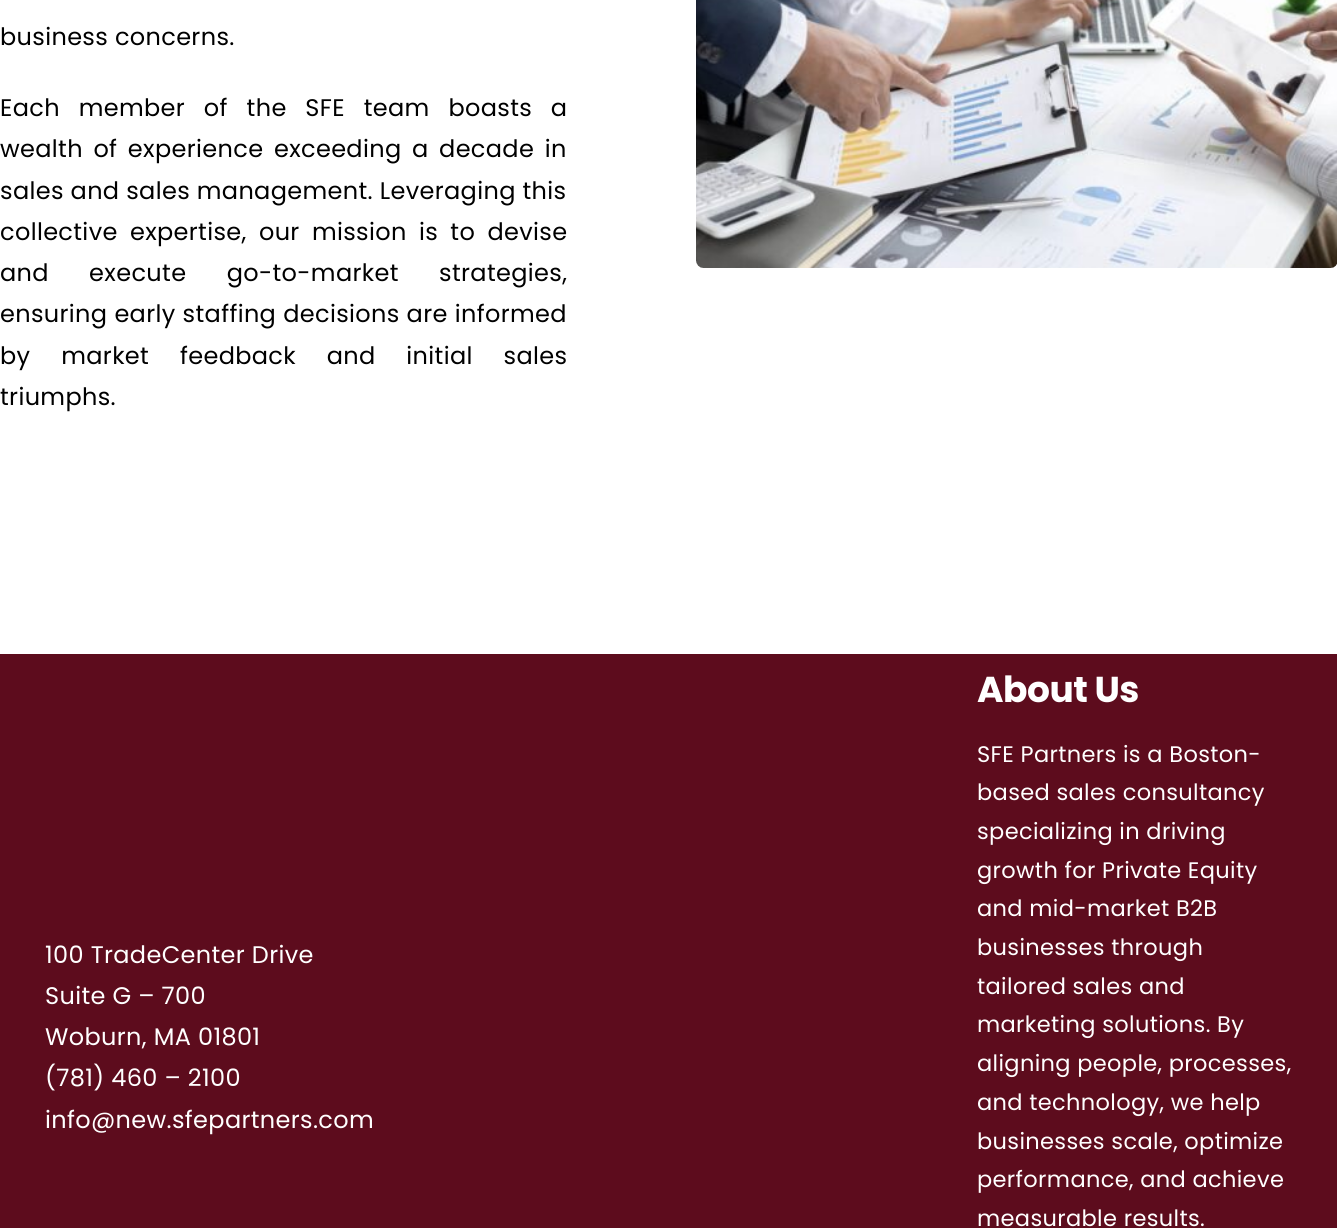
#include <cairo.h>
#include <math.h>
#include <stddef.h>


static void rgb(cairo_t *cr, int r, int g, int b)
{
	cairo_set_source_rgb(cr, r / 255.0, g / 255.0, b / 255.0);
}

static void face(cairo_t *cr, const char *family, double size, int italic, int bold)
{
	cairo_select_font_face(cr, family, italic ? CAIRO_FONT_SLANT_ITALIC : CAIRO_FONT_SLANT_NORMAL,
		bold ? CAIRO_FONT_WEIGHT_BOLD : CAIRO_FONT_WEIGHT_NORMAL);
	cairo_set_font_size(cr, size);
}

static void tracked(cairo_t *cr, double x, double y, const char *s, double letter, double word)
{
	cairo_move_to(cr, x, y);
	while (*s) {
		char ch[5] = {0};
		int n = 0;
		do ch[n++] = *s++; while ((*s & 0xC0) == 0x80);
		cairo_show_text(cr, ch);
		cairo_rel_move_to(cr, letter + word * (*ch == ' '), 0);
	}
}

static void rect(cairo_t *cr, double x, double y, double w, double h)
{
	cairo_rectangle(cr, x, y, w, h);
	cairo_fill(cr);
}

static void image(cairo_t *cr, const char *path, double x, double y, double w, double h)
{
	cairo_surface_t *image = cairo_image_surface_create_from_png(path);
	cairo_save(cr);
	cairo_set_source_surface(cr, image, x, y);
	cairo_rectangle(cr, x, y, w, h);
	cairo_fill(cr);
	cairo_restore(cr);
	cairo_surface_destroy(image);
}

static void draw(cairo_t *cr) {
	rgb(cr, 255, 255, 255);
	cairo_paint(cr);
	face(cr, "Poppins", 24, 0, 0);
	rgb(cr, 0, 0, 0);
	tracked(cr, 0, 45, "business concerns.", 0.35, 0);
	tracked(cr, 0, 116, "Each member of the SFE team boasts a", 0.35, 12);
	tracked(cr, 0, 157, "wealth of experience exceeding a decade in", 0.35, 3.75);
	tracked(cr, 0, 199, "sales and sales management. Leveraging this", 0.35, 0);
	tracked(cr, 0, 240, "collective expertise, our mission is to devise", 0.35, 5.5);
	tracked(cr, 0, 281, "and execute go-to-market strategies,", 0.35, 33.5);
	tracked(cr, 0, 322, "ensuring early staffing decisions are informed", 0.35, 0.25);
	tracked(cr, 0, 364, "by market feedback and initial sales", 0.35, 24);
	tracked(cr, 0, 405, "triumphs.", 0.35, 0);
	image(cr, "image0.png", 696, 0, 641, 268);
	rgb(cr, 93, 12, 29);
	rect(cr, 0, 654, 1337, 574);
	rgb(cr, 255, 255, 255);
	tracked(cr, 45, 963, "100 TradeCenter Drive", 0.35, 0);
	tracked(cr, 45, 1004, "Suite G – 700", 0.35, 0);
	tracked(cr, 45, 1045, "Woburn, MA 01801", 0.35, 0);
	tracked(cr, 45, 1086, "(781) 460 – 2100", 0.35, 0);
	tracked(cr, 45, 1128, "info@new.sfepartners.com", 0.35, 0);
	face(cr, "Poppins", 36, 0, 1);
	tracked(cr, 977, 702, "About Us", -0.5, 0);
	face(cr, "Poppins", 22.5, 0, 0);
	tracked(cr, 977, 762, "SFE Partners is a Boston-", 0.35, 0);
	tracked(cr, 977, 800, "based sales consultancy", 0.35, 0);
	tracked(cr, 977, 839, "specializing in driving", 0.35, 0);
	tracked(cr, 977, 878, "growth for Private Equity", 0.35, 0);
	tracked(cr, 977, 916, "and mid-market B2B", 0.35, 0);
	tracked(cr, 977, 955, "businesses through", 0.35, 0);
	tracked(cr, 977, 994, "tailored sales and", 0.35, 0);
	tracked(cr, 977, 1032, "marketing solutions. By", 0.35, 0);
	tracked(cr, 977, 1071, "aligning people, processes,", 0.35, 0);
	tracked(cr, 977, 1110, "and technology, we help", 0.35, 0);
	tracked(cr, 977, 1149, "businesses scale, optimize", 0.35, 0);
	tracked(cr, 977, 1187, "performance, and achieve", 0.35, 0);
	tracked(cr, 977, 1226, "measurable results.", 0.35, 0);
}

int main(void) {
	cairo_surface_t *surface = cairo_image_surface_create(CAIRO_FORMAT_RGB24, 1337, 1228);
	cairo_t *cr = cairo_create(surface);
	cairo_font_options_t *options = cairo_font_options_create();
	cairo_font_options_set_hint_metrics(options, CAIRO_HINT_METRICS_OFF);
	cairo_font_options_set_hint_style(options, CAIRO_HINT_STYLE_NONE);
	cairo_set_font_options(cr, options);
	cairo_set_miter_limit(cr, 4);
	draw(cr);
	cairo_surface_write_to_png(surface, "render.png");
	cairo_font_options_destroy(options);
	cairo_destroy(cr);
	cairo_surface_destroy(surface);
	return 0;
}
